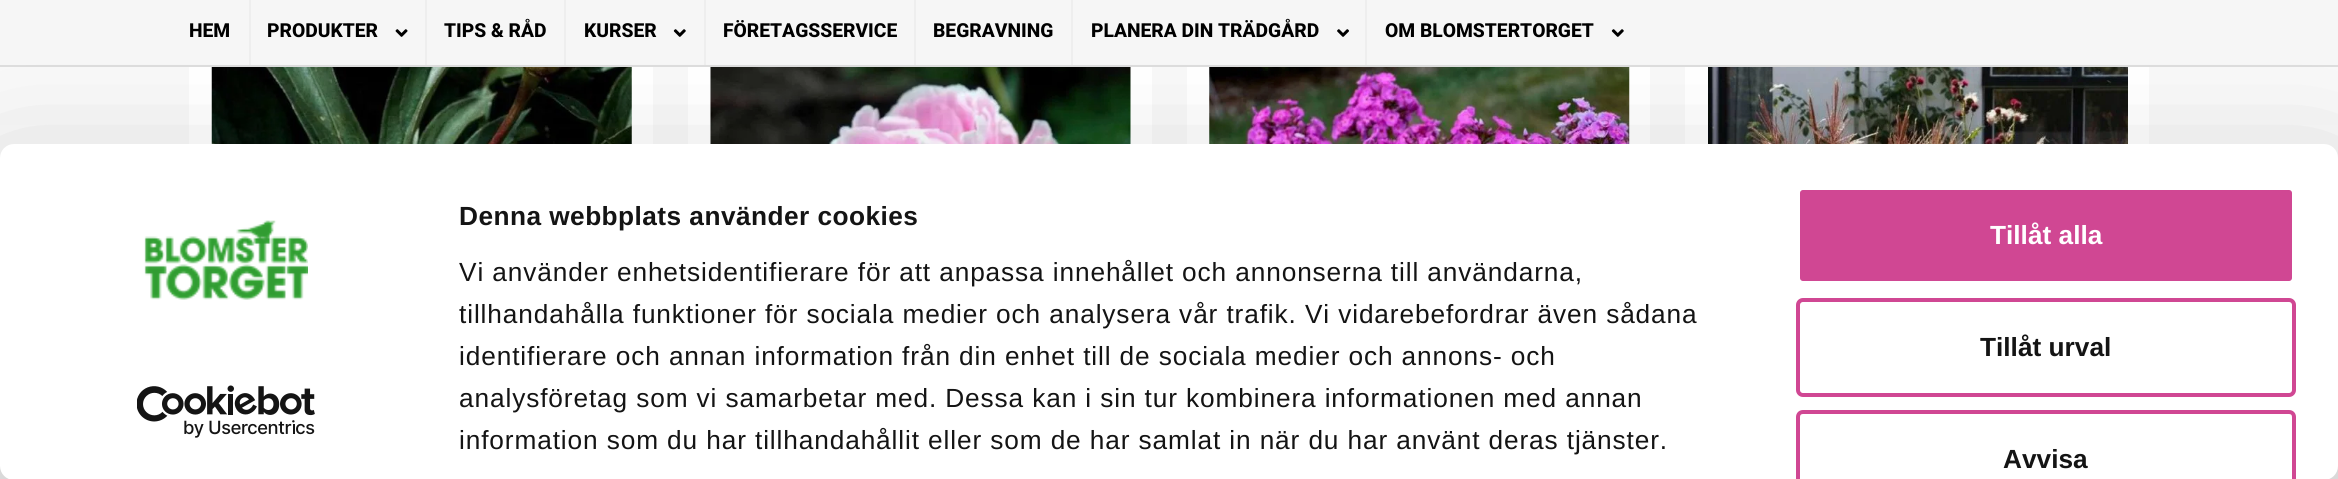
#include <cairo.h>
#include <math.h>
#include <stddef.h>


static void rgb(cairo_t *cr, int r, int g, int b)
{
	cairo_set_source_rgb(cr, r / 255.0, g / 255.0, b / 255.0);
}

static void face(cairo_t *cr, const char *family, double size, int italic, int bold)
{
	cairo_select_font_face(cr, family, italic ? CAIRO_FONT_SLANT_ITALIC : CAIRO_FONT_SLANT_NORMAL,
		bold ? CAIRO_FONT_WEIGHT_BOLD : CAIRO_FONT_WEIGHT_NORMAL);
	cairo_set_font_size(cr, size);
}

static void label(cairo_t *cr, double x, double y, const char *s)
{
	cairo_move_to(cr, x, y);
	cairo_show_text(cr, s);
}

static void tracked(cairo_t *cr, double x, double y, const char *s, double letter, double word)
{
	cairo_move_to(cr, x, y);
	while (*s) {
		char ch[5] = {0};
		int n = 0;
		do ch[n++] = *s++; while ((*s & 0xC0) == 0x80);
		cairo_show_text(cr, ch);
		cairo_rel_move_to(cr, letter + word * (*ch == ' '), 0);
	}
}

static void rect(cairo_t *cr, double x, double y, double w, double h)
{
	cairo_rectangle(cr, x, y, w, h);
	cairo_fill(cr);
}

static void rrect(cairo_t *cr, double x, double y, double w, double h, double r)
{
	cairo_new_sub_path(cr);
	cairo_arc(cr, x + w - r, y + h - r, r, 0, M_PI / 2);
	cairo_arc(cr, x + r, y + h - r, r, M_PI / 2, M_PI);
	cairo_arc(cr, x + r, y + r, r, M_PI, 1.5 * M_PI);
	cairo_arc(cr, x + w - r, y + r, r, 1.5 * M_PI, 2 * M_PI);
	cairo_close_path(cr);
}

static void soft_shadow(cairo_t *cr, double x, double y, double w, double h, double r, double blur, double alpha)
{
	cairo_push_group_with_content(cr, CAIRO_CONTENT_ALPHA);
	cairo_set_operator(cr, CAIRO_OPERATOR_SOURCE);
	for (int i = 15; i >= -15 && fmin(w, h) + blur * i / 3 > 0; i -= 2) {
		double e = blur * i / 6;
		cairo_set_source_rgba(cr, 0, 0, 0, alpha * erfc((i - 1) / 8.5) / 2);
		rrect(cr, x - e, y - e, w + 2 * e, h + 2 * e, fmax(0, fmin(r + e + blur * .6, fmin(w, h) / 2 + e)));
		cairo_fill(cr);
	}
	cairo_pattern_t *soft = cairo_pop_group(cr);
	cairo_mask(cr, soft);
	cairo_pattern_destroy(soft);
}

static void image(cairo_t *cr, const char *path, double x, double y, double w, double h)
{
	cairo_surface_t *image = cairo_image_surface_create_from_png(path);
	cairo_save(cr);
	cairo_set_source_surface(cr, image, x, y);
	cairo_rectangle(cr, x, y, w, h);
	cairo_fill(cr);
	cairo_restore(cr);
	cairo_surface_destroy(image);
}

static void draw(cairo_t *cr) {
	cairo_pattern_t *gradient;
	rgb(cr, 255, 255, 255);
	cairo_paint(cr);
	rgb(cr, 246, 246, 246);
	rect(cr, 0, 0, 2338, 65);
	rgb(cr, 221, 221, 221);
	rect(cr, 0, 65, 2338, 2);
	rgb(cr, 238, 238, 238);
	rect(cr, 249, 0, 2, 65);
	face(cr, "Roboto ExtraBold", 19.25, 0, 0);
	rgb(cr, 0, 0, 0);
	label(cr, 189, 37, "HEM");
	rgb(cr, 238, 238, 238);
	rect(cr, 425, 0, 2, 65);
	rgb(cr, 0, 0, 0);
	label(cr, 267, 37, "PRODUKTER");
	image(cr, "image0.png", 395, 29, 13, 8);
	rgb(cr, 238, 238, 238);
	rect(cr, 564, 0, 2, 65);
	rgb(cr, 0, 0, 0);
	label(cr, 444, 37, "TIPS & RÅD");
	rgb(cr, 238, 238, 238);
	rect(cr, 704, 0, 2, 65);
	rgb(cr, 0, 0, 0);
	label(cr, 584, 37, "KURSER");
	image(cr, "image1.png", 673, 29, 13, 8);
	rgb(cr, 238, 238, 238);
	rect(cr, 914, 0, 2, 65);
	rgb(cr, 0, 0, 0);
	label(cr, 723, 37, "FÖRETAGSSERVICE");
	rgb(cr, 238, 238, 238);
	rect(cr, 1071, 0, 2, 65);
	rgb(cr, 0, 0, 0);
	label(cr, 933, 37, "BEGRAVNING");
	rgb(cr, 238, 238, 238);
	rect(cr, 1365, 0, 2, 65);
	rgb(cr, 0, 0, 0);
	label(cr, 1091, 37, "PLANERA DIN TRÄDGÅRD");
	image(cr, "image2.png", 1337, 29, 12, 8);
	label(cr, 1385, 37, "OM BLOMSTERTORGET");
	image(cr, "image1.png", 1611, 29, 13, 8);
	gradient = cairo_pattern_create_linear(1169, -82, 1169, 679);
	cairo_pattern_add_color_stop_rgba(gradient, 0, 0.965, 0.965, 0.965, 1);
	cairo_pattern_add_color_stop_rgba(gradient, 1, 1, 1, 1, 1);
	cairo_set_source(cr, gradient);
	cairo_pattern_destroy(gradient);
	rect(cr, 0, 67, 2338, 401);
	rgb(cr, 255, 255, 255);
	rect(cr, 189, 67, 464, 77);
	image(cr, "image3.png", 211, 67, 421, 77);
	rect(cr, 688, 67, 464, 77);
	image(cr, "image4.png", 710, 67, 421, 77);
	rect(cr, 1187, 67, 463, 77);
	image(cr, "image5.png", 1209, 67, 421, 77);
	rect(cr, 1685, 67, 464, 77);
	image(cr, "image6.png", 1708, 67, 420, 77);
	rgb(cr, 0, 0, 0);
	soft_shadow(cr, 0, 196, 2338, 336, 14, 61, 0.3);
	rgb(cr, 255, 255, 255);
	rrect(cr, 0, 144, 2338, 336, 14);
	cairo_fill(cr);
	image(cr, "image7.png", 144, 220, 164, 80);
	image(cr, "image8.png", 137, 385, 178, 53);
	face(cr, "Liberation Sans", 26.25, 0, 1);
	rgb(cr, 20, 20, 20);
	tracked(cr, 459, 225, "Denna webbplats använder cookies", 0.45, 0);
	face(cr, "Liberation Sans", 26.25, 0, 0);
	tracked(cr, 459, 281, "Vi använder enhetsidentifierare för att anpassa innehållet och annonserna till användarna,", 0.88, 0);
	tracked(cr, 459, 323, "tillhandahålla funktioner för sociala medier och analysera vår trafik. Vi vidarebefordrar även sådana", 0.88, 0);
	tracked(cr, 459, 365, "identifierare och annan information från din enhet till de sociala medier och annons- och", 0.88, 0);
	tracked(cr, 459, 407, "analysföretag som vi samarbetar med. Dessa kan i sin tur kombinera informationen med annan", 0.88, 0);
	tracked(cr, 459, 449, "information som du har tillhandahållit eller som de har samlat in när du har använt deras tjänster.", 0.88, 0);
	rgb(cr, 208, 71, 147);
	rrect(cr, 1798, 188, 496, 95, 5);
	cairo_fill_preserve(cr);
	rgb(cr, 255, 255, 255);
	cairo_set_line_width(cr, 4);
	cairo_stroke(cr);
	face(cr, "Liberation Sans", 26.25, 0, 1);
	label(cr, 1990, 244, "Tillåt alla");
	rrect(cr, 1798, 300, 496, 95, 5);
	rgb(cr, 208, 71, 147);
	cairo_stroke(cr);
	rgb(cr, 20, 20, 20);
	label(cr, 1980, 356, "Tillåt urval");
	rgb(cr, 208, 71, 147);
	cairo_new_path(cr);
	cairo_move_to(cr, 1803, 410);
	cairo_curve_to(cr, 1799, 410, 1796, 413, 1796, 417);
	cairo_line_to(cr, 1796, 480);
	cairo_line_to(cr, 1800, 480);
	cairo_line_to(cr, 1800, 417);
	cairo_curve_to(cr, 1800, 415, 1801, 414, 1803, 414);
	cairo_line_to(cr, 2289, 414);
	cairo_curve_to(cr, 2291, 414, 2292, 415, 2292, 417);
	cairo_line_to(cr, 2292, 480);
	cairo_line_to(cr, 2296, 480);
	cairo_line_to(cr, 2296, 417);
	cairo_curve_to(cr, 2296, 413, 2293, 410, 2289, 410);
	cairo_close_path(cr);
	cairo_fill(cr);
	rgb(cr, 20, 20, 20);
	label(cr, 2003, 468, "Avvisa");
}

int main(void) {
	cairo_surface_t *surface = cairo_image_surface_create(CAIRO_FORMAT_RGB24, 2338, 479);
	cairo_t *cr = cairo_create(surface);
	cairo_font_options_t *options = cairo_font_options_create();
	cairo_font_options_set_hint_metrics(options, CAIRO_HINT_METRICS_OFF);
	cairo_font_options_set_hint_style(options, CAIRO_HINT_STYLE_NONE);
	cairo_set_font_options(cr, options);
	cairo_set_miter_limit(cr, 4);
	draw(cr);
	cairo_surface_write_to_png(surface, "render.png");
	cairo_font_options_destroy(options);
	cairo_destroy(cr);
	cairo_surface_destroy(surface);
	return 0;
}
